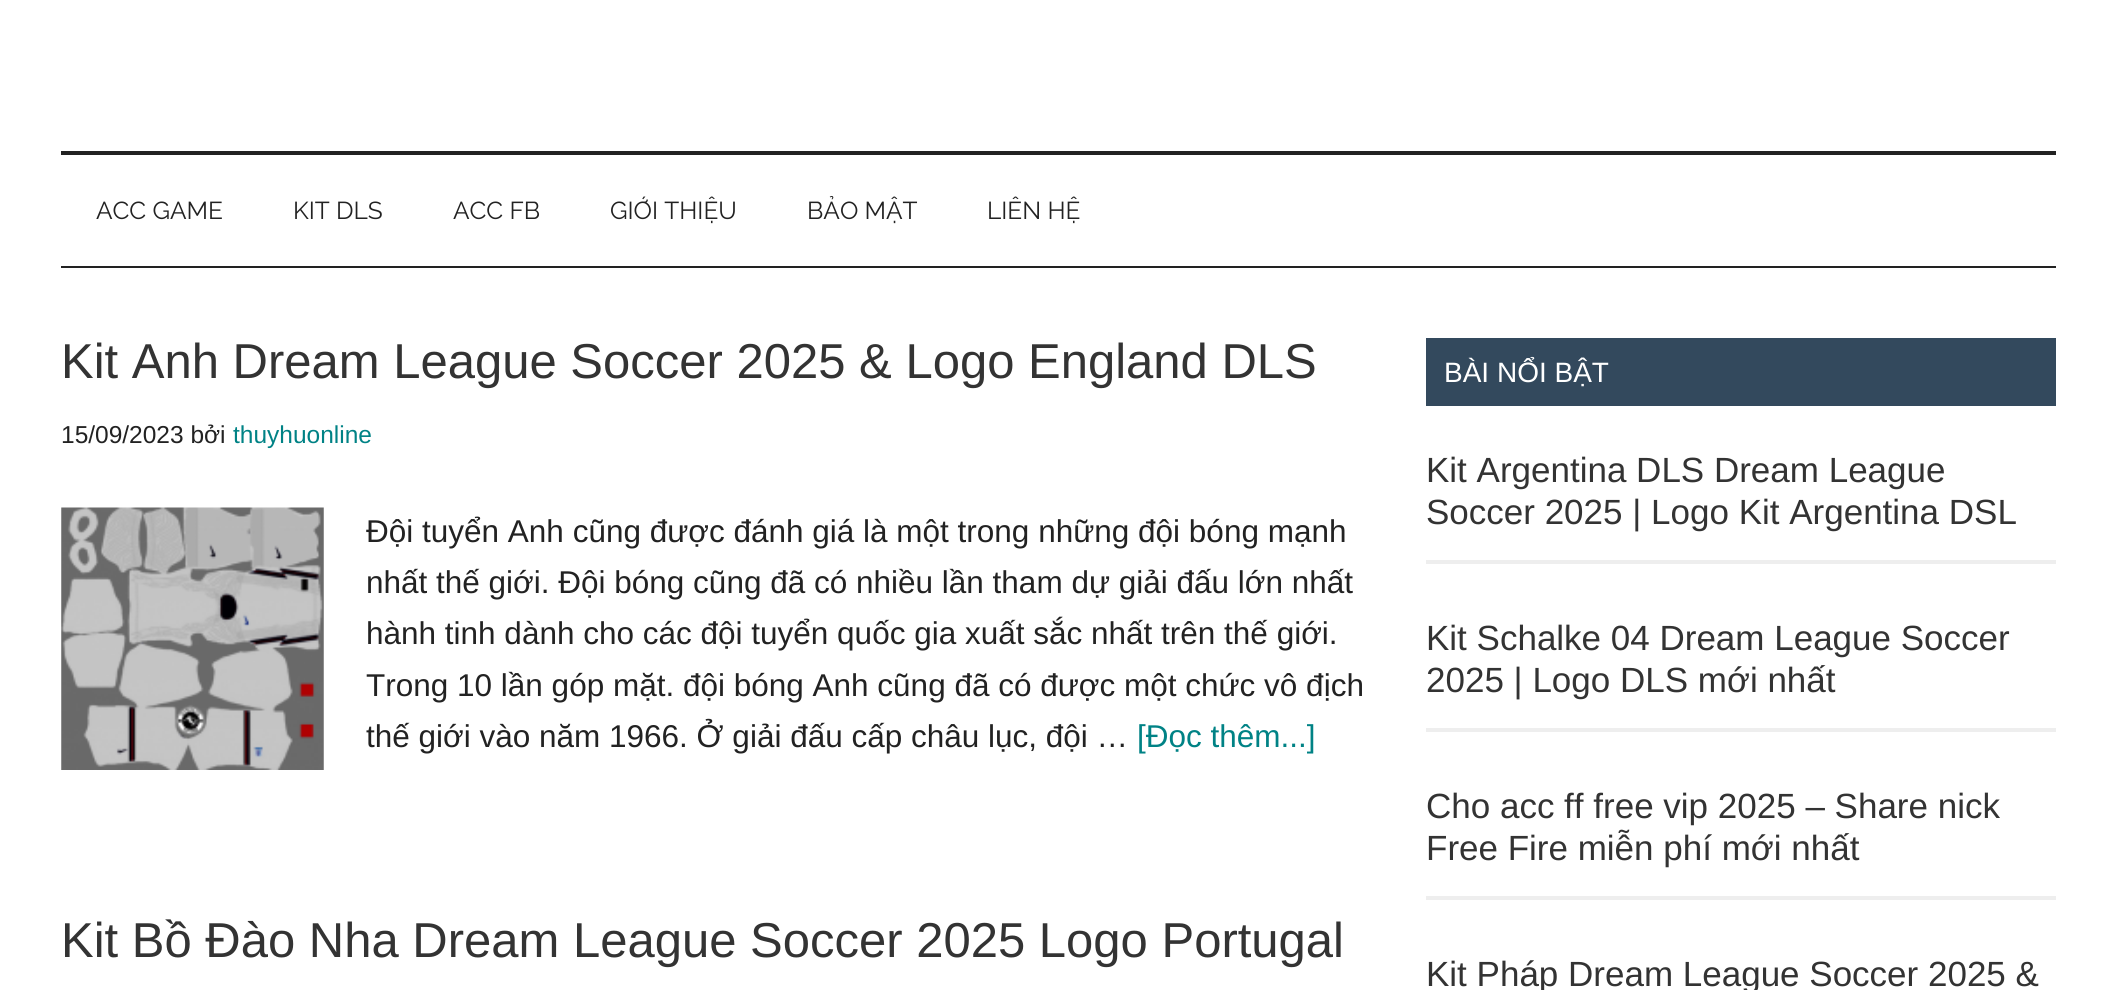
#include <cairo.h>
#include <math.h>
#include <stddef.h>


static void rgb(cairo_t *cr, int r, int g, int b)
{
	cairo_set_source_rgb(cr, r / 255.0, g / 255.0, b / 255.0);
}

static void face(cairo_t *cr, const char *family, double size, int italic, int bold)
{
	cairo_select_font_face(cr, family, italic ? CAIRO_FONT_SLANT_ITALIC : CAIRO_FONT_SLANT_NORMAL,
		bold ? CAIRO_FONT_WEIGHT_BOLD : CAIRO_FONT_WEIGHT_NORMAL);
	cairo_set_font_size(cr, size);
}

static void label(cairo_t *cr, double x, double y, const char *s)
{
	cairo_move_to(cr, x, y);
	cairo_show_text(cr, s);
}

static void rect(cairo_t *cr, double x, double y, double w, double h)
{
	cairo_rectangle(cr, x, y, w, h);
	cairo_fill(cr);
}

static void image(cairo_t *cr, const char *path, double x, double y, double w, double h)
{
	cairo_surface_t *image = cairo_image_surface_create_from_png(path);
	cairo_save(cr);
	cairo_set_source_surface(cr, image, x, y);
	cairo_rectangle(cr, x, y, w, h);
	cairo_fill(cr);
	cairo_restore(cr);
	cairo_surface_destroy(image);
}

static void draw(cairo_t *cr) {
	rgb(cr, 255, 255, 255);
	cairo_paint(cr);
	rgb(cr, 34, 34, 34);
	rect(cr, 61, 151, 1995, 4);
	rect(cr, 61, 266, 1995, 2);
	face(cr, "Raleway", 24.5, 0, 0);
	label(cr, 96, 219, "ACC GAME");
	label(cr, 293, 219, "KIT DLS");
	label(cr, 453, 219, "ACC FB");
	label(cr, 610, 219, "GIỚI THIỆU");
	label(cr, 807, 219, "BẢO MẬT");
	label(cr, 987, 219, "LIÊN HỆ");
	face(cr, "Liberation Sans", 49, 0, 0);
	rgb(cr, 51, 51, 51);
	label(cr, 61, 378, "Kit Anh Dream League Soccer 2025 & Logo England DLS");
	face(cr, "Liberation Sans", 24.5, 0, 0);
	rgb(cr, 34, 34, 34);
	label(cr, 61, 443, "15/09/2023 bởi");
	rgb(cr, 0, 130, 133);
	label(cr, 233, 443, "thuyhuonline");
	image(cr, "image0.png", 61, 507, 263, 263);
	face(cr, "Liberation Sans", 31.5, 0, 0);
	rgb(cr, 34, 34, 34);
	label(cr, 366, 542, "Đội tuyển Anh cũng được đánh giá là một trong những đội bóng mạnh");
	label(cr, 366, 593, "nhất thế giới. Đội bóng cũng đã có nhiều lần tham dự giải đấu lớn nhất");
	label(cr, 366, 644, "hành tinh dành cho các đội tuyển quốc gia xuất sắc nhất trên thế giới.");
	label(cr, 366, 696, "Trong 10 lần góp mặt. đội bóng Anh cũng đã có được một chức vô địch");
	label(cr, 366, 747, "thế giới vào năm 1966. Ở giải đấu cấp châu lục, đội …");
	rgb(cr, 0, 130, 133);
	label(cr, 1137, 747, "[Đọc thêm...]");
	face(cr, "Liberation Sans", 49, 0, 0);
	rgb(cr, 51, 51, 51);
	label(cr, 61, 957, "Kit Bồ Đào Nha Dream League Soccer 2025 Logo Portugal");
	rgb(cr, 51, 73, 93);
	rect(cr, 1426, 338, 630, 68);
	face(cr, "Liberation Sans", 28, 0, 0);
	rgb(cr, 255, 255, 255);
	label(cr, 1444, 382, "BÀI NỔI BẬT");
	rgb(cr, 238, 238, 238);
	rect(cr, 1426, 560, 630, 4);
	face(cr, "Liberation Sans", 35, 0, 0);
	rgb(cr, 51, 51, 51);
	label(cr, 1426, 482, "Kit Argentina DLS Dream League");
	label(cr, 1426, 524, "Soccer 2025 | Logo Kit Argentina DSL");
	rgb(cr, 238, 238, 238);
	rect(cr, 1426, 728, 630, 4);
	rgb(cr, 51, 51, 51);
	label(cr, 1426, 650, "Kit Schalke 04 Dream League Soccer");
	label(cr, 1426, 692, "2025 | Logo DLS mới nhất");
	rgb(cr, 238, 238, 238);
	rect(cr, 1426, 896, 630, 4);
	rgb(cr, 51, 51, 51);
	label(cr, 1426, 818, "Cho acc ff free vip 2025 – Share nick");
	label(cr, 1426, 860, "Free Fire miễn phí mới nhất");
	label(cr, 1426, 986, "Kit Pháp Dream League Soccer 2025 &");
}

int main(void) {
	cairo_surface_t *surface = cairo_image_surface_create(CAIRO_FORMAT_RGB24, 2117, 990);
	cairo_t *cr = cairo_create(surface);
	cairo_font_options_t *options = cairo_font_options_create();
	cairo_font_options_set_hint_metrics(options, CAIRO_HINT_METRICS_OFF);
	cairo_font_options_set_hint_style(options, CAIRO_HINT_STYLE_NONE);
	cairo_set_font_options(cr, options);
	cairo_set_miter_limit(cr, 4);
	draw(cr);
	cairo_surface_write_to_png(surface, "render.png");
	cairo_font_options_destroy(options);
	cairo_destroy(cr);
	cairo_surface_destroy(surface);
	return 0;
}
